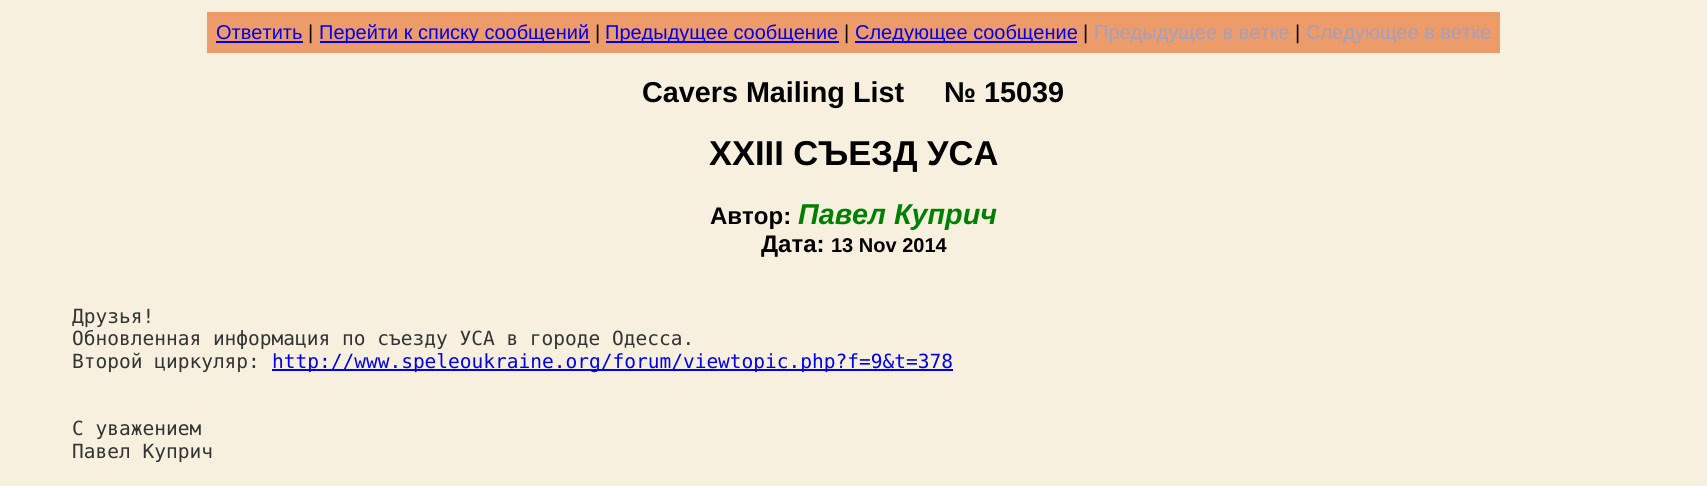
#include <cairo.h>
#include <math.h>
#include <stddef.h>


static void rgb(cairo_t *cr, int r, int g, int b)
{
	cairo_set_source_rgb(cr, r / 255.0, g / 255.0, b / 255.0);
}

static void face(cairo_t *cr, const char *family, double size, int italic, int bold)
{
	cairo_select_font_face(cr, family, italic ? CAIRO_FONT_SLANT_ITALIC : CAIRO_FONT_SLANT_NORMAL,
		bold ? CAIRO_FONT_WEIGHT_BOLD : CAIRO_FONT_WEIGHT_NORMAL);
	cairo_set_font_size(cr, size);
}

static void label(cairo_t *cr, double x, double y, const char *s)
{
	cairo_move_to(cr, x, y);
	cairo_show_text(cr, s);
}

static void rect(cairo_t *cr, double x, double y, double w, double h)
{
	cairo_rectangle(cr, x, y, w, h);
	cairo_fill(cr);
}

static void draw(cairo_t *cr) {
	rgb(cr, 247, 240, 223);
	cairo_paint(cr);
	rgb(cr, 238, 155, 106);
	rect(cr, 207, 12, 1293, 41);
	face(cr, "Liberation Sans", 20, 0, 0);
	rgb(cr, 0, 0, 238);
	label(cr, 216, 39, "Ответить");
	rect(cr, 216, 41, 87, 2);
	rgb(cr, 0, 0, 0);
	label(cr, 308, 39, "|");
	rgb(cr, 0, 0, 238);
	rect(cr, 320, 41, 270, 2);
	label(cr, 319, 39, "Перейти к списку сообщений");
	rgb(cr, 0, 0, 0);
	label(cr, 595, 39, "|");
	rgb(cr, 0, 0, 238);
	rect(cr, 606, 41, 233, 2);
	label(cr, 605, 39, "Предыдущее сообщение");
	rgb(cr, 0, 0, 0);
	label(cr, 844, 39, "|");
	rgb(cr, 0, 0, 238);
	rect(cr, 855, 41, 222, 2);
	label(cr, 855, 39, "Следующее сообщение");
	rgb(cr, 0, 0, 0);
	label(cr, 1083, 39, "|");
	rgb(cr, 160, 160, 192);
	label(cr, 1094, 39, "Предыдущее в ветке");
	rgb(cr, 0, 0, 0);
	label(cr, 1295, 39, "|");
	rgb(cr, 160, 160, 192);
	label(cr, 1306, 39, "Следующее в ветке");
	face(cr, "Liberation Sans", 28.75, 0, 1);
	rgb(cr, 0, 0, 0);
	label(cr, 642, 102, "Cavers Mailing List     № 15039");
	face(cr, "Liberation Sans", 34.5, 0, 1);
	label(cr, 709, 165, "ХХIII СЪЕЗД УСА");
	face(cr, "Liberation Sans", 24, 0, 1);
	label(cr, 710, 224, "Автор:");
	face(cr, "Liberation Sans", 28.75, 1, 1);
	rgb(cr, 0, 128, 0);
	label(cr, 798, 224, "Павел Куприч");
	face(cr, "Liberation Sans", 24, 0, 1);
	rgb(cr, 0, 0, 0);
	label(cr, 761, 252, "Дата:");
	face(cr, "Liberation Sans", 20, 0, 1);
	label(cr, 831, 252, "13 Nov 2014");
	face(cr, "DejaVu Sans Mono", 19.5, 0, 0);
	rgb(cr, 51, 51, 51);
	label(cr, 72, 323, "Друзья!");
	label(cr, 72, 345, "Обновленная информация по съезду УСА в городе Одесса.");
	label(cr, 72, 368, "Второй циркуляр:");
	rgb(cr, 0, 0, 238);
	rect(cr, 272, 369, 681, 2);
	label(cr, 272, 368, "http://www.speleoukraine.org/forum/viewtopic.php?f=9&t=378");
	rgb(cr, 51, 51, 51);
	label(cr, 72, 435, "С уважением");
	label(cr, 72, 458, "Павел Куприч");
}

int main(void) {
	cairo_surface_t *surface = cairo_image_surface_create(CAIRO_FORMAT_RGB24, 1707, 486);
	cairo_t *cr = cairo_create(surface);
	cairo_font_options_t *options = cairo_font_options_create();
	cairo_font_options_set_hint_metrics(options, CAIRO_HINT_METRICS_OFF);
	cairo_font_options_set_hint_style(options, CAIRO_HINT_STYLE_NONE);
	cairo_set_font_options(cr, options);
	cairo_set_miter_limit(cr, 4);
	draw(cr);
	cairo_surface_write_to_png(surface, "render.png");
	cairo_font_options_destroy(options);
	cairo_destroy(cr);
	cairo_surface_destroy(surface);
	return 0;
}
